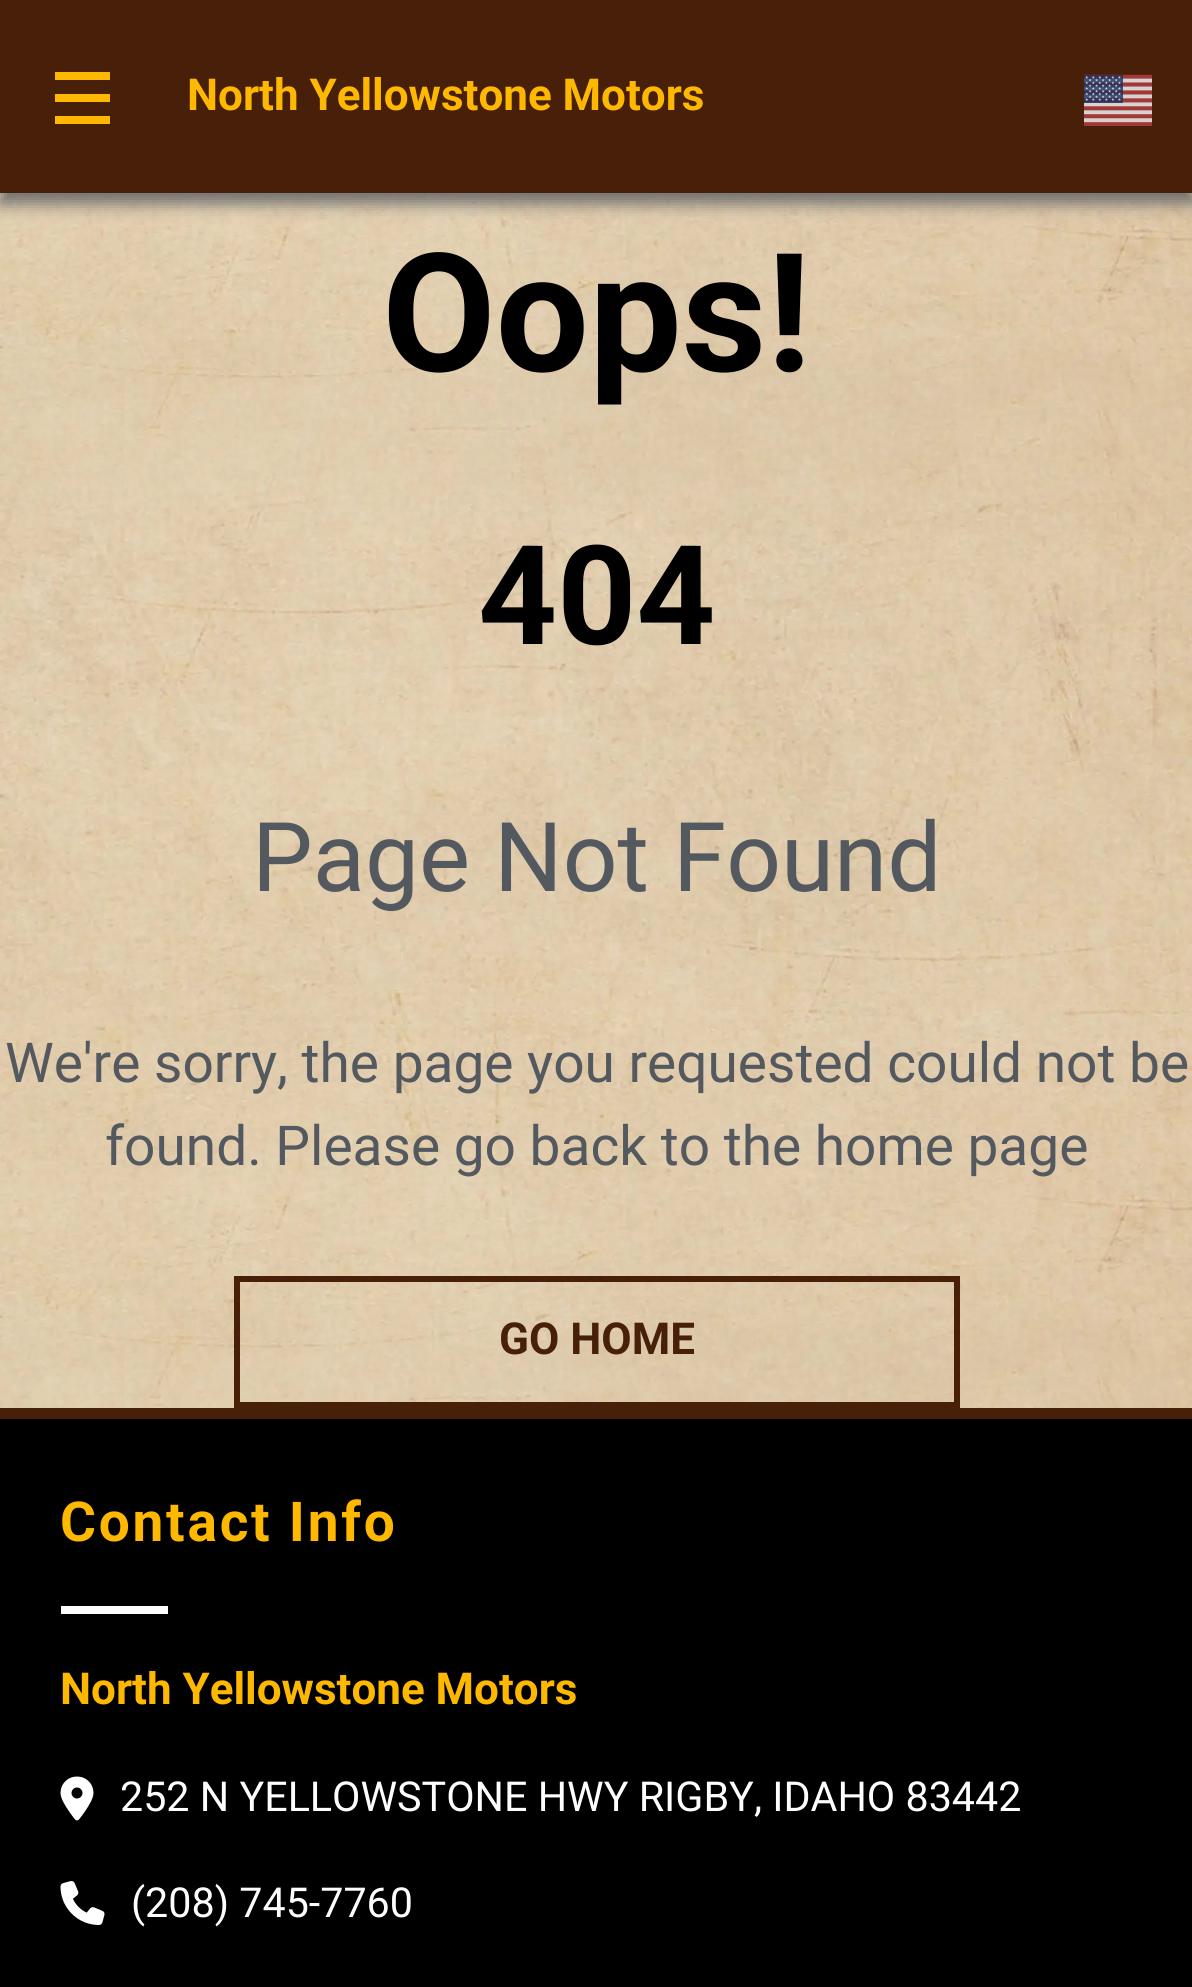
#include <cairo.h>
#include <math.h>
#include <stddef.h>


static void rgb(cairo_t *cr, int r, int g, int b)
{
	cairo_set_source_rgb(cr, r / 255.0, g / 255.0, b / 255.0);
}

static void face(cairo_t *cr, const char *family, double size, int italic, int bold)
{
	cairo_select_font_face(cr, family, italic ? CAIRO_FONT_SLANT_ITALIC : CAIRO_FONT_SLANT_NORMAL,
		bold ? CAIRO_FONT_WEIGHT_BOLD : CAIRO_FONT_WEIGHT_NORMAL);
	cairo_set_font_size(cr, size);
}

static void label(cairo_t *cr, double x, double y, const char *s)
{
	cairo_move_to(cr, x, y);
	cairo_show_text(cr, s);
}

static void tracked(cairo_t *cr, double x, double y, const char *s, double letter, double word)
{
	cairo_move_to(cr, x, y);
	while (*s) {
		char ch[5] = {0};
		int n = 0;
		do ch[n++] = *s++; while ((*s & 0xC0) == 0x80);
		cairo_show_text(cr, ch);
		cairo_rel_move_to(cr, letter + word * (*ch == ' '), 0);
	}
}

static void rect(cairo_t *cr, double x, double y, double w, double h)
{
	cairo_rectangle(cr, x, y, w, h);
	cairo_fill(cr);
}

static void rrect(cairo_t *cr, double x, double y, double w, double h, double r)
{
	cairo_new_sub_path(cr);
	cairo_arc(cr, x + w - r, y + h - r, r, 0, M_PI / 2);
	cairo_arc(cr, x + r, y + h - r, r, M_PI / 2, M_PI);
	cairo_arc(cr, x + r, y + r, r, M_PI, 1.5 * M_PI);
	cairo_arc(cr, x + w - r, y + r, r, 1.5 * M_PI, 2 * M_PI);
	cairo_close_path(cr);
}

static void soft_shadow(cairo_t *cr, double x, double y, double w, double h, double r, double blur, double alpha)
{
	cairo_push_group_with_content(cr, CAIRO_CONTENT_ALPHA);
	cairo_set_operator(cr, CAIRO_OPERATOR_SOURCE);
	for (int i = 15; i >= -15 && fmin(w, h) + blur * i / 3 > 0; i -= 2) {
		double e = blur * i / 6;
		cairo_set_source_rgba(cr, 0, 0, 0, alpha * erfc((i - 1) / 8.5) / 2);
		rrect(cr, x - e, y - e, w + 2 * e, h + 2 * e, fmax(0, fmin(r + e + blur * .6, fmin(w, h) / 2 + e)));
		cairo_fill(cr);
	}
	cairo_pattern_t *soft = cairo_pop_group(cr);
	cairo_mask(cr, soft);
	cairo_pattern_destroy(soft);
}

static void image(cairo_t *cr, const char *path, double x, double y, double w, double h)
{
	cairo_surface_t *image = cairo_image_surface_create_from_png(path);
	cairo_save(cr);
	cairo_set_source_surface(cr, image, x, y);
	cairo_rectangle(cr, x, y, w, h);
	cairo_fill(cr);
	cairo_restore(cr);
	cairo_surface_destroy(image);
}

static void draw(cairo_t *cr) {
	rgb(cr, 255, 255, 255);
	cairo_paint(cr);
	image(cr, "image0.png", 0, 193, 1192, 1215);
	rgb(cr, 112, 112, 112);
	soft_shadow(cr, 0, 11, 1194, 193, 0, 8, 1);
	rgb(cr, 72, 32, 10);
	rect(cr, 0, 0, 1192, 193);
	rgb(cr, 255, 184, 0);
	rect(cr, 55, 94, 55, 8);
	rect(cr, 55, 72, 55, 8);
	rect(cr, 55, 116, 55, 8);
	face(cr, "Roboto", 44, 0, 1);
	label(cr, 187, 110, "North Yellowstone Motors");
	image(cr, "image1.png", 1084, 74, 68, 52);
	face(cr, "Roboto", 165, 0, 1);
	rgb(cr, 0, 0, 0);
	label(cr, 382, 371, "Oops!");
	face(cr, "Roboto", 138, 0, 1);
	label(cr, 478, 644, "404");
	face(cr, "Roboto", 96.25, 0, 0);
	rgb(cr, 84, 89, 95);
	label(cr, 252, 891, "Page Not Found");
	face(cr, "Roboto", 55, 0, 0);
	label(cr, 5, 1082, "We're sorry, the page you requested could not be");
	label(cr, 105, 1165, "found. Please go back to the home page");
	cairo_rectangle(cr, 237, 1279, 720, 126);
	rgb(cr, 72, 32, 10);
	cairo_set_line_width(cr, 6);
	cairo_stroke(cr);
	face(cr, "Roboto", 44, 0, 1);
	label(cr, 499, 1354, "GO HOME");
	rect(cr, 0, 1408, 1192, 11);
	rgb(cr, 0, 0, 0);
	rect(cr, 0, 1419, 1192, 568);
	face(cr, "Roboto", 55, 0, 1);
	rgb(cr, 255, 184, 0);
	tracked(cr, 60, 1541, "Contact Info", 2.75, 0);
	rgb(cr, 255, 255, 255);
	rect(cr, 61, 1606, 107, 8);
	face(cr, "Roboto", 44, 0, 1);
	rgb(cr, 255, 184, 0);
	label(cr, 60, 1704, "North Yellowstone Motors");
	image(cr, "image2.png", 60, 1776, 34, 45);
	face(cr, "Roboto", 41.25, 0, 0);
	rgb(cr, 255, 255, 255);
	label(cr, 120, 1811, "252 N YELLOWSTONE HWY RIGBY, IDAHO 83442");
	image(cr, "image3.png", 60, 1881, 45, 44);
	label(cr, 131, 1917, "(208) 745-7760");
}

int main(void) {
	cairo_surface_t *surface = cairo_image_surface_create(CAIRO_FORMAT_RGB24, 1192, 1987);
	cairo_t *cr = cairo_create(surface);
	cairo_font_options_t *options = cairo_font_options_create();
	cairo_font_options_set_hint_metrics(options, CAIRO_HINT_METRICS_OFF);
	cairo_font_options_set_hint_style(options, CAIRO_HINT_STYLE_NONE);
	cairo_set_font_options(cr, options);
	cairo_set_miter_limit(cr, 4);
	draw(cr);
	cairo_surface_write_to_png(surface, "render.png");
	cairo_font_options_destroy(options);
	cairo_destroy(cr);
	cairo_surface_destroy(surface);
	return 0;
}
